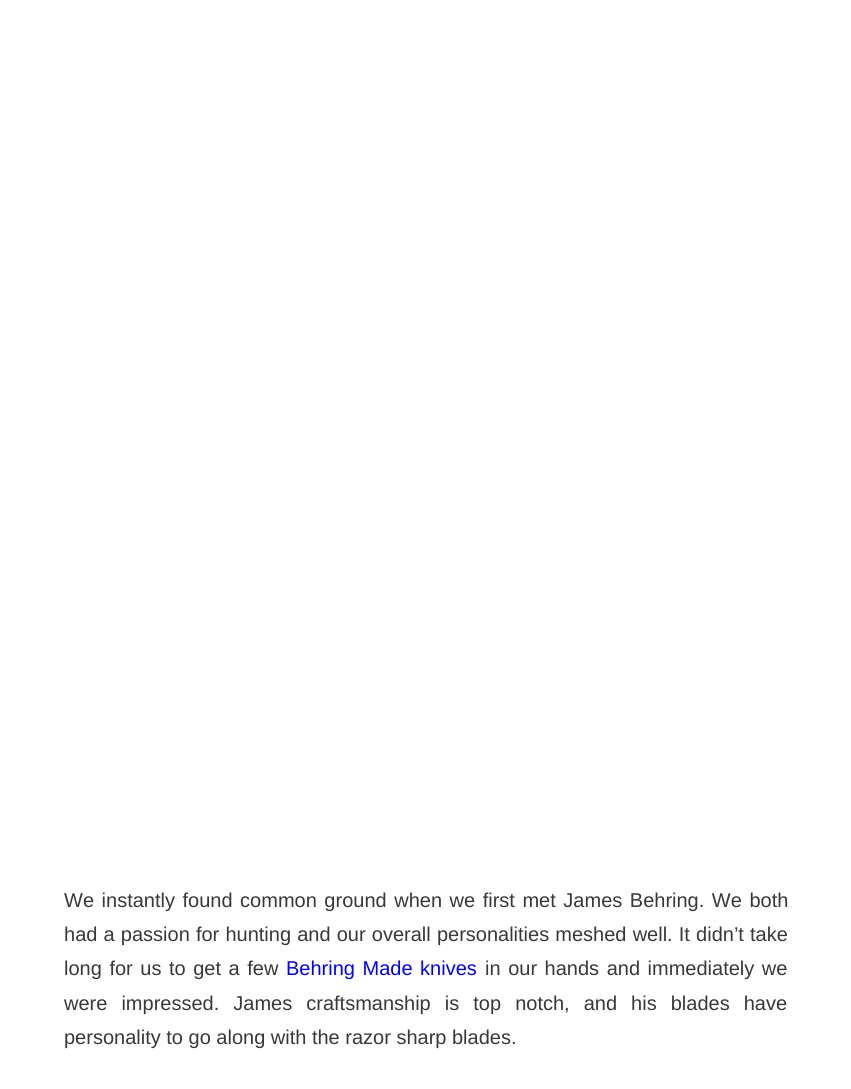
#include <cairo.h>
#include <math.h>
#include <stddef.h>


static void rgb(cairo_t *cr, int r, int g, int b)
{
	cairo_set_source_rgb(cr, r / 255.0, g / 255.0, b / 255.0);
}

static void face(cairo_t *cr, const char *family, double size, int italic, int bold)
{
	cairo_select_font_face(cr, family, italic ? CAIRO_FONT_SLANT_ITALIC : CAIRO_FONT_SLANT_NORMAL,
		bold ? CAIRO_FONT_WEIGHT_BOLD : CAIRO_FONT_WEIGHT_NORMAL);
	cairo_set_font_size(cr, size);
}

static void label(cairo_t *cr, double x, double y, const char *s)
{
	cairo_move_to(cr, x, y);
	cairo_show_text(cr, s);
}

static void tracked(cairo_t *cr, double x, double y, const char *s, double letter, double word)
{
	cairo_move_to(cr, x, y);
	while (*s) {
		char ch[5] = {0};
		int n = 0;
		do ch[n++] = *s++; while ((*s & 0xC0) == 0x80);
		cairo_show_text(cr, ch);
		cairo_rel_move_to(cr, letter + word * (*ch == ' '), 0);
	}
}

static void draw(cairo_t *cr) {
	rgb(cr, 255, 255, 255);
	cairo_paint(cr);
	face(cr, "Liberation Sans", 20, 0, 0);
	rgb(cr, 56, 56, 56);
	tracked(cr, 64, 907, "We instantly found common ground when we first met James Behring. We both", 0, 2);
	tracked(cr, 64, 941, "had a passion for hunting and our overall personalities meshed well. It didn’t take", 0, 0.6);
	tracked(cr, 64, 975, "long for us to get a few", 0, 2);
	rgb(cr, 0, 0, 255);
	tracked(cr, 286, 975, "Behring Made knives", 0, 2);
	rgb(cr, 56, 56, 56);
	tracked(cr, 485, 975, "in our hands and immediately we", 0, 2);
	tracked(cr, 64, 1010, "were impressed. James craftsmanship is top notch, and his blades have", 0, 8.5);
	label(cr, 64, 1044, "personality to go along with the razor sharp blades.");
}

int main(void) {
	cairo_surface_t *surface = cairo_image_surface_create(CAIRO_FORMAT_RGB24, 851, 1089);
	cairo_t *cr = cairo_create(surface);
	cairo_font_options_t *options = cairo_font_options_create();
	cairo_font_options_set_hint_metrics(options, CAIRO_HINT_METRICS_OFF);
	cairo_font_options_set_hint_style(options, CAIRO_HINT_STYLE_NONE);
	cairo_set_font_options(cr, options);
	cairo_set_miter_limit(cr, 4);
	draw(cr);
	cairo_surface_write_to_png(surface, "render.png");
	cairo_font_options_destroy(options);
	cairo_destroy(cr);
	cairo_surface_destroy(surface);
	return 0;
}
